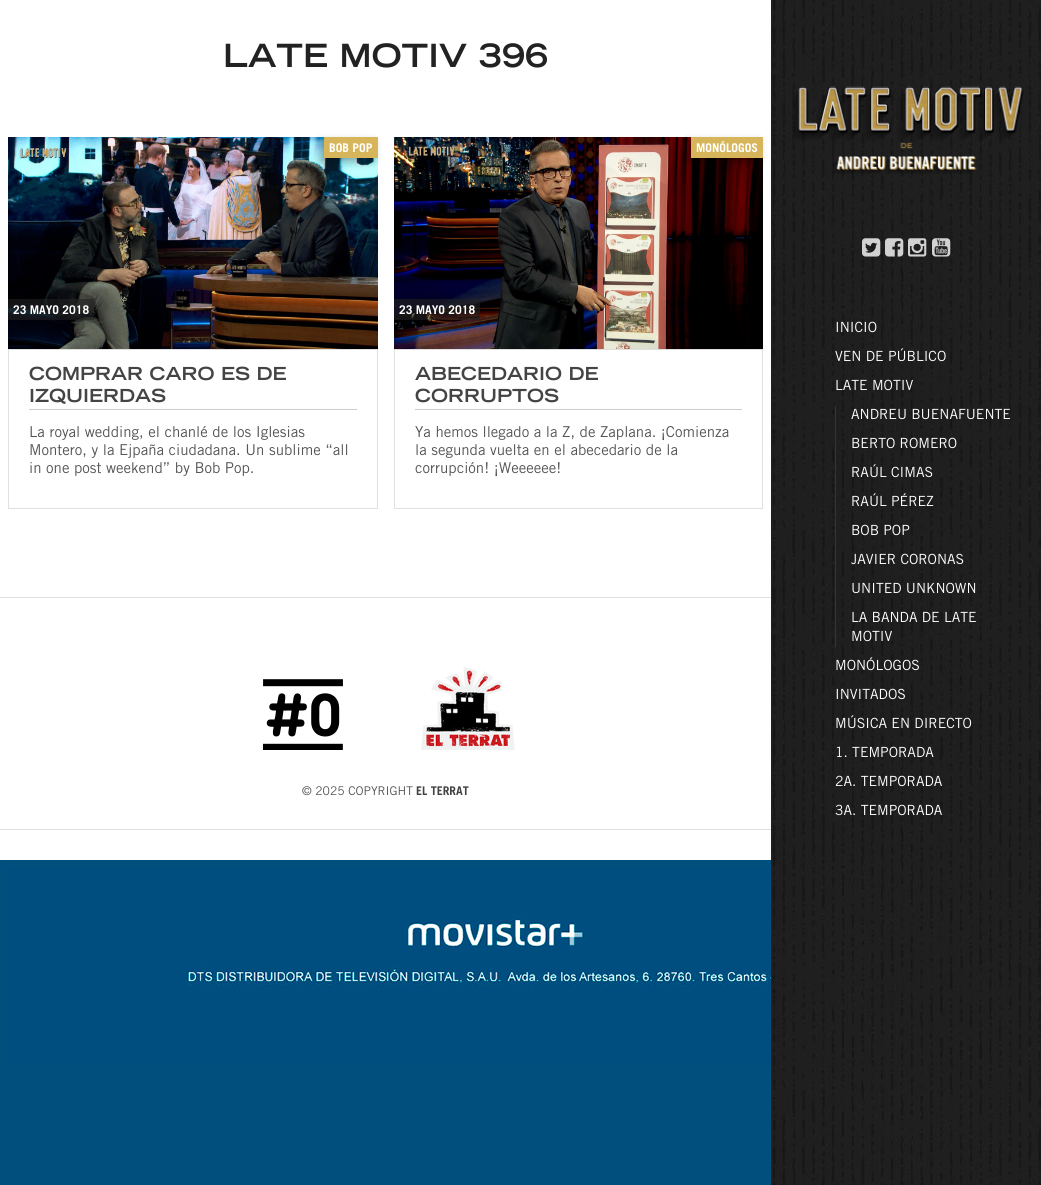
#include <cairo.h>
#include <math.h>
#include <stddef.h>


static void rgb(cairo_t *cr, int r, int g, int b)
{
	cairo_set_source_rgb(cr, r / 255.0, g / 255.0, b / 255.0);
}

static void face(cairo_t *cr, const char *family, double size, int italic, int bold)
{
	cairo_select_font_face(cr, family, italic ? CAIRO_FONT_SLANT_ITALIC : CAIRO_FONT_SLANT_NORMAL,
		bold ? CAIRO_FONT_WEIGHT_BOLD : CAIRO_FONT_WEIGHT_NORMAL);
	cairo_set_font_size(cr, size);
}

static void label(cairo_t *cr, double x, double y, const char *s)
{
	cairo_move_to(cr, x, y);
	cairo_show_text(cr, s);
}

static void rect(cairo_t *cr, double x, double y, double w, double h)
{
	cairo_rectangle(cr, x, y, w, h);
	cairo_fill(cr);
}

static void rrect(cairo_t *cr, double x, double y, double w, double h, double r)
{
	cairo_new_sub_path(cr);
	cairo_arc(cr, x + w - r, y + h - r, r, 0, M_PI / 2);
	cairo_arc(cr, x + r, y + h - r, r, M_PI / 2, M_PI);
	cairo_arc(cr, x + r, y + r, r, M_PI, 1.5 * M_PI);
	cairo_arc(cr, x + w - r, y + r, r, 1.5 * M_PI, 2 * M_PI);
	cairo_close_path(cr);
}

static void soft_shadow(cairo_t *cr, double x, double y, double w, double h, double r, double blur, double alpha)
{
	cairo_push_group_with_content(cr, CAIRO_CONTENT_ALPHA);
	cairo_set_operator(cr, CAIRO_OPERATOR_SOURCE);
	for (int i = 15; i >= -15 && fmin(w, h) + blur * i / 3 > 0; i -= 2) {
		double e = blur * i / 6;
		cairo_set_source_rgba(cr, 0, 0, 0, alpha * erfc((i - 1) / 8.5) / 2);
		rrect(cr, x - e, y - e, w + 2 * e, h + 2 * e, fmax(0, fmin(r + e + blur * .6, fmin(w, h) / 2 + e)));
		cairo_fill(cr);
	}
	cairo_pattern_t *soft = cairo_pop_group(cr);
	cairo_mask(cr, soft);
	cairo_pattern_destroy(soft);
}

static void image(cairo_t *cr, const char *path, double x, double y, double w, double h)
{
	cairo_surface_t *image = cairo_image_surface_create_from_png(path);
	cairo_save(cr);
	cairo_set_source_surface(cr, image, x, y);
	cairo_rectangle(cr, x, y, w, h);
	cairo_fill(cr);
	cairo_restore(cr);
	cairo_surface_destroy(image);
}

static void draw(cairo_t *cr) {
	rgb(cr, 255, 255, 255);
	cairo_paint(cr);
	face(cr, "Trade Gothic", 32, 0, 1);
	rgb(cr, 34, 34, 34);
	label(cr, 223, 67, "LATE MOTIV 396");
	image(cr, "image0.png", 8, 137, 370, 212);
	rgb(cr, 0, 0, 0);
	soft_shadow(cr, 320, 141, 54, 21, 0, 4, 0.3);
	rgb(cr, 215, 181, 91);
	rect(cr, 324, 137, 54, 21);
	face(cr, "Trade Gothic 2", 12, 0, 1);
	rgb(cr, 255, 255, 255);
	label(cr, 329, 152, "BOB POP");
	cairo_set_source_rgba(cr, 0.133, 0.133, 0.133, 0.6);
	rect(cr, 8, 299, 86, 21);
	rgb(cr, 255, 255, 255);
	label(cr, 13, 314, "23 MAYO 2018");
	cairo_rectangle(cr, 8.5, 349.5, 369, 159);
	rgb(cr, 223, 223, 223);
	cairo_set_line_width(cr, 1);
	cairo_stroke(cr);
	rgb(cr, 204, 204, 204);
	rect(cr, 29, 409, 328, 1);
	face(cr, "Trade Gothic", 18, 0, 1);
	rgb(cr, 68, 68, 68);
	label(cr, 29, 380, "COMPRAR CARO ES DE");
	label(cr, 29, 402, "IZQUIERDAS");
	face(cr, "Trade Gothic", 15, 0, 0);
	rgb(cr, 85, 85, 85);
	label(cr, 29, 437, "La royal wedding, el chanlé de los Iglesias");
	label(cr, 29, 455, "Montero, y la Ejpaña ciudadana. Un sublime “all");
	label(cr, 29, 473, "in one post weekend” by Bob Pop.");
	image(cr, "image1.png", 394, 137, 369, 212);
	rgb(cr, 0, 0, 0);
	soft_shadow(cr, 687, 141, 72, 21, 0, 4, 0.3);
	rgb(cr, 215, 181, 91);
	rect(cr, 691, 137, 72, 21);
	face(cr, "Trade Gothic 2", 12, 0, 1);
	rgb(cr, 255, 255, 255);
	label(cr, 696, 152, "MONÓLOGOS");
	cairo_set_source_rgba(cr, 0.133, 0.133, 0.133, 0.6);
	rect(cr, 394, 299, 86, 21);
	rgb(cr, 255, 255, 255);
	label(cr, 399, 314, "23 MAYO 2018");
	cairo_rectangle(cr, 394.5, 349.5, 368, 159);
	rgb(cr, 223, 223, 223);
	cairo_stroke(cr);
	rgb(cr, 204, 204, 204);
	rect(cr, 415, 409, 327, 1);
	face(cr, "Trade Gothic", 18, 0, 1);
	rgb(cr, 68, 68, 68);
	label(cr, 415, 380, "ABECEDARIO DE");
	label(cr, 415, 402, "CORRUPTOS");
	face(cr, "Trade Gothic", 15, 0, 0);
	rgb(cr, 85, 85, 85);
	label(cr, 415, 437, "Ya hemos llegado a la Z, de Zaplana. ¡Comienza");
	label(cr, 415, 455, "la segunda vuelta en el abecedario de la");
	label(cr, 415, 473, "corrupción! ¡Weeeeee!");
	rgb(cr, 223, 223, 223);
	rect(cr, 0, 597, 771, 1);
	image(cr, "image2.png", 263, 679, 80, 71);
	image(cr, "image3.png", 421, 667, 94, 83);
	face(cr, "Trade Gothic", 12, 0, 0);
	rgb(cr, 85, 85, 85);
	label(cr, 302, 795, "© 2025 COPYRIGHT");
	face(cr, "Trade Gothic 2", 12, 0, 1);
	rgb(cr, 68, 68, 68);
	label(cr, 416, 795, "EL TERRAT");
	image(cr, "image4.png", 771, 0, 270, 1185);
	image(cr, "image5.png", 792, 86, 232, 88);
	image(cr, "image6.png", 862, 238, 19, 19);
	image(cr, "image7.png", 885, 238, 19, 19);
	image(cr, "image8.png", 908, 238, 19, 19);
	image(cr, "image9.png", 932, 238, 19, 19);
	face(cr, "Trade Gothic", 14, 0, 0);
	rgb(cr, 255, 255, 255);
	label(cr, 835, 332, "INICIO");
	label(cr, 835, 361, "VEN DE PÚBLICO");
	label(cr, 835, 390, "LATE MOTIV");
	cairo_set_source_rgba(cr, 1, 1, 1, 0.1);
	rect(cr, 835, 406, 1, 241);
	rgb(cr, 255, 255, 255);
	label(cr, 851, 419, "ANDREU BUENAFUENTE");
	label(cr, 851, 448, "BERTO ROMERO");
	label(cr, 851, 477, "RAÚL CIMAS");
	label(cr, 851, 506, "RAÚL PÉREZ");
	label(cr, 851, 535, "BOB POP");
	label(cr, 851, 564, "JAVIER CORONAS");
	label(cr, 851, 593, "UNITED UNKNOWN");
	label(cr, 851, 622, "LA BANDA DE LATE");
	label(cr, 851, 641, "MOTIV");
	label(cr, 835, 670, "MONÓLOGOS");
	label(cr, 835, 699, "INVITADOS");
	label(cr, 835, 728, "MÚSICA EN DIRECTO");
	label(cr, 835, 757, "1. TEMPORADA");
	label(cr, 835, 786, "2A. TEMPORADA");
	label(cr, 835, 815, "3A. TEMPORADA");
	rgb(cr, 223, 223, 223);
	rect(cr, 0, 829, 771, 1);
	image(cr, "image10.png", 0, 860, 771, 325);
}

int main(void) {
	cairo_surface_t *surface = cairo_image_surface_create(CAIRO_FORMAT_RGB24, 1041, 1185);
	cairo_t *cr = cairo_create(surface);
	cairo_font_options_t *options = cairo_font_options_create();
	cairo_font_options_set_hint_metrics(options, CAIRO_HINT_METRICS_OFF);
	cairo_font_options_set_hint_style(options, CAIRO_HINT_STYLE_NONE);
	cairo_set_font_options(cr, options);
	cairo_set_miter_limit(cr, 4);
	draw(cr);
	cairo_surface_write_to_png(surface, "render.png");
	cairo_font_options_destroy(options);
	cairo_destroy(cr);
	cairo_surface_destroy(surface);
	return 0;
}
